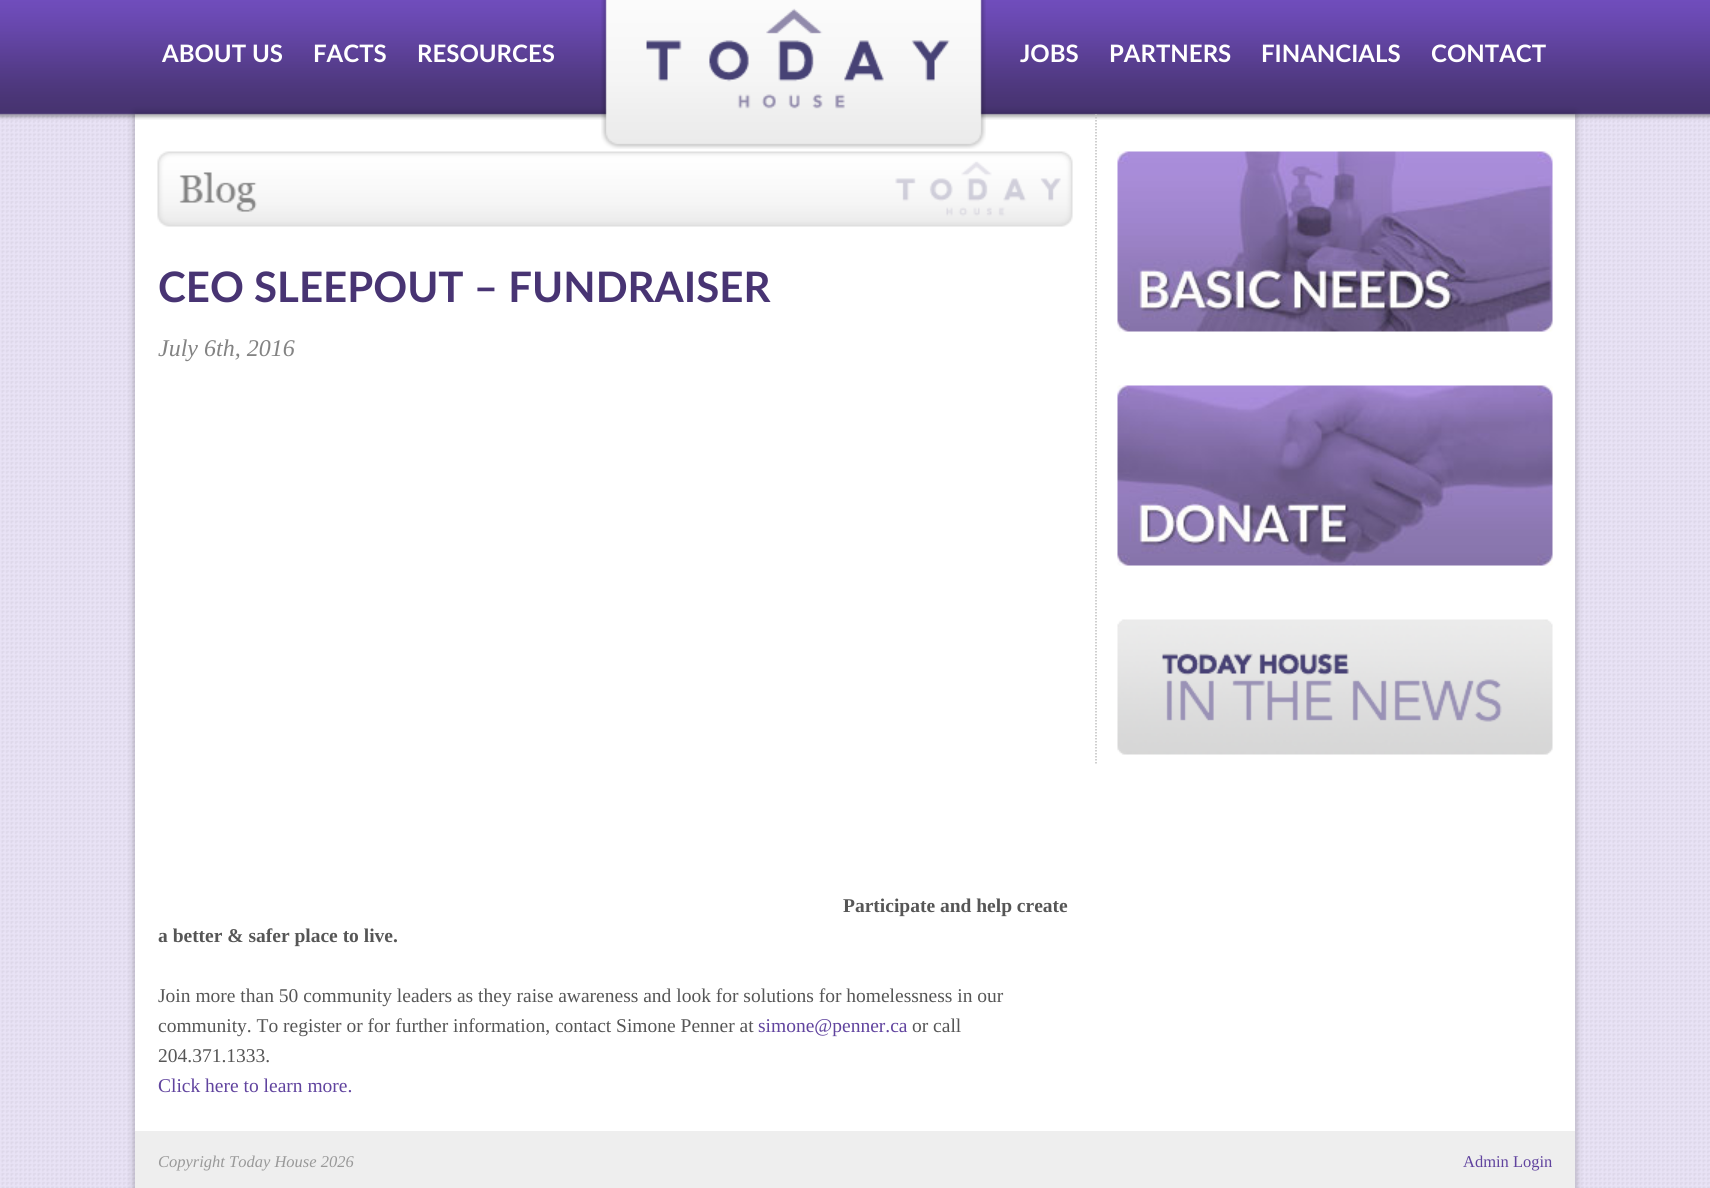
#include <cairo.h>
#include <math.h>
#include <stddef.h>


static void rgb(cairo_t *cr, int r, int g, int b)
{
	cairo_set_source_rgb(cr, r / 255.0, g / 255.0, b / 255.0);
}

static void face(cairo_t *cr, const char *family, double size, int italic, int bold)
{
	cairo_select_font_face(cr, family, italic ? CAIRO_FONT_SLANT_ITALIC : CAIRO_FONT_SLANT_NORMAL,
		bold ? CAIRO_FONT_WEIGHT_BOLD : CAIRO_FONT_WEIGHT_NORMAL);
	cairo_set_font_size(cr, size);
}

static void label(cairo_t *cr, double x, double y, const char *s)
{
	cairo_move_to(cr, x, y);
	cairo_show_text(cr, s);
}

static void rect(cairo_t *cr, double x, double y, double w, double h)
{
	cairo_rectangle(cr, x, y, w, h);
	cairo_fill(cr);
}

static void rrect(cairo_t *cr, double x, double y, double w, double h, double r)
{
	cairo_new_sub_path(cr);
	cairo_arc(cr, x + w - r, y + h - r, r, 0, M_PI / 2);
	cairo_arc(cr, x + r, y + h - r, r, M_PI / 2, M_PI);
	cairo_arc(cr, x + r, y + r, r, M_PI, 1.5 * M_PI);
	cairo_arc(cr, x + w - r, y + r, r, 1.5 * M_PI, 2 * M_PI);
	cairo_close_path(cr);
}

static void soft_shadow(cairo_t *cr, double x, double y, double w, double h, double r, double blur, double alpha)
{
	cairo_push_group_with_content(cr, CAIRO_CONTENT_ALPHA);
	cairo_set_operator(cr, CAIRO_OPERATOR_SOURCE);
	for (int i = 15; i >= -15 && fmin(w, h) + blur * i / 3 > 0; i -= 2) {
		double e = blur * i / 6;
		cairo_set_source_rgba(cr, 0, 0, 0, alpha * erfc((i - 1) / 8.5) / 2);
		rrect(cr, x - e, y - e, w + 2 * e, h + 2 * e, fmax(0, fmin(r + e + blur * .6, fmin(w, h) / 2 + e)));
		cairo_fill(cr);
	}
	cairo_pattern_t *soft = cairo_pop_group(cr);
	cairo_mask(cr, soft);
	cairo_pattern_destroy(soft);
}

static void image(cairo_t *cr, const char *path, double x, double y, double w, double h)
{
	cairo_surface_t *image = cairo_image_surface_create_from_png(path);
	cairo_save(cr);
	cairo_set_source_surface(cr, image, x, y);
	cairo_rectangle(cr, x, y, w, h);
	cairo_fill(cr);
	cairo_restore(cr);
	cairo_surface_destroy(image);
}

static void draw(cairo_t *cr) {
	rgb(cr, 255, 255, 255);
	cairo_paint(cr);
	image(cr, "image0.png", 0, 113, 1710, 1075);
	image(cr, "image1.png", 0, 0, 1710, 120);
	face(cr, "Lato", 24, 0, 1);
	rgb(cr, 255, 255, 255);
	label(cr, 162, 62, "ABOUT US");
	label(cr, 313, 62, "FACTS");
	label(cr, 417, 62, "RESOURCES");
	rgb(cr, 0, 0, 0);
	soft_shadow(cr, 135, 114, 1440, 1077, 0, 4, 0.3);
	rgb(cr, 255, 255, 255);
	rect(cr, 135, 114, 1440, 1017);
	image(cr, "image3.png", 135, 114, 1440, 6);
	image(cr, "image2.png", 601, 0, 385, 149);
	label(cr, 1020, 62, "JOBS");
	label(cr, 1109, 62, "PARTNERS");
	label(cr, 1261, 62, "FINANCIALS");
	label(cr, 1431, 62, "CONTACT");
	image(cr, "image4.png", 157, 151, 916, 76);
	face(cr, "Lato", 42, 0, 1);
	rgb(cr, 72, 52, 115);
	label(cr, 158, 302, "CEO SLEEPOUT – FUNDRAISER");
	face(cr, "Liberation Serif", 24, 1, 0);
	rgb(cr, 131, 131, 131);
	label(cr, 158, 356, "July 6th, 2016");
	face(cr, "Liberation Serif", 19.5, 0, 1);
	rgb(cr, 86, 86, 86);
	label(cr, 843, 912, "Participate and help create");
	label(cr, 158, 942, "a better & safer place to live.");
	face(cr, "Liberation Serif", 19.5, 0, 0);
	label(cr, 158, 1002, "Join more than 50 community leaders as they raise awareness and look for solutions for homelessness in our");
	label(cr, 158, 1032, "community. To register or for further information, contact Simone Penner at");
	rgb(cr, 96, 67, 158);
	label(cr, 758, 1032, "simone@penner.ca");
	rgb(cr, 86, 86, 86);
	label(cr, 912, 1032, "or call");
	label(cr, 158, 1062, "204.371.1333.");
	rgb(cr, 96, 67, 158);
	label(cr, 158, 1092, "Click here to learn more.");
	cairo_new_path(cr);
	cairo_move_to(cr, 1096, 114);
	cairo_line_to(cr, 1096, 763.5);
	rgb(cr, 191, 191, 191);
	cairo_set_line_width(cr, 1.5);
	cairo_set_dash(cr, (double[]){1.5, 1.5}, 2, 0);
	cairo_stroke(cr);
	image(cr, "image5.png", 1117, 151, 436, 181);
	image(cr, "image6.png", 1117, 385, 436, 181);
	image(cr, "image7.png", 1117, 619, 436, 136);
	rgb(cr, 238, 238, 238);
	rect(cr, 135, 1131, 1440, 57);
	face(cr, "Liberation Serif", 16.5, 1, 0);
	rgb(cr, 153, 153, 153);
	label(cr, 158, 1167, "Copyright Today House 2026");
	face(cr, "Liberation Serif", 16.5, 0, 0);
	rgb(cr, 96, 67, 158);
	label(cr, 1463, 1167, "Admin Login");
}

int main(void) {
	cairo_surface_t *surface = cairo_image_surface_create(CAIRO_FORMAT_RGB24, 1710, 1188);
	cairo_t *cr = cairo_create(surface);
	cairo_font_options_t *options = cairo_font_options_create();
	cairo_font_options_set_hint_metrics(options, CAIRO_HINT_METRICS_OFF);
	cairo_font_options_set_hint_style(options, CAIRO_HINT_STYLE_NONE);
	cairo_set_font_options(cr, options);
	cairo_set_miter_limit(cr, 4);
	draw(cr);
	cairo_surface_write_to_png(surface, "render.png");
	cairo_font_options_destroy(options);
	cairo_destroy(cr);
	cairo_surface_destroy(surface);
	return 0;
}
